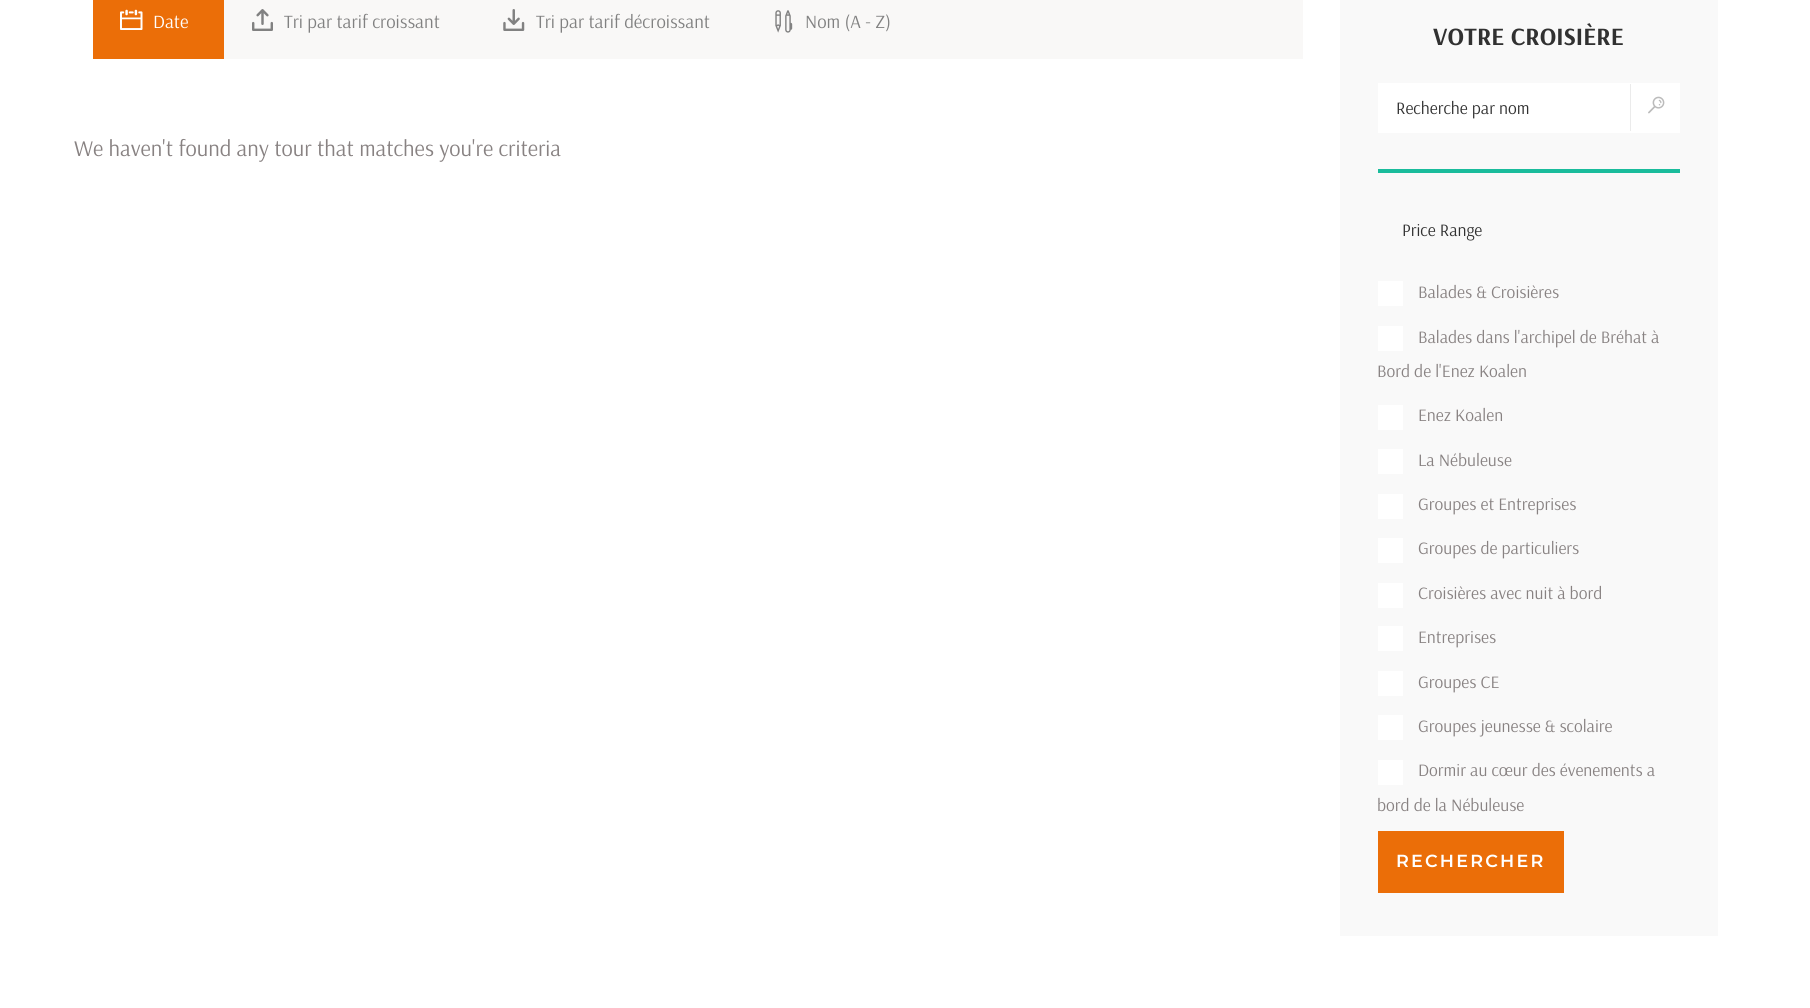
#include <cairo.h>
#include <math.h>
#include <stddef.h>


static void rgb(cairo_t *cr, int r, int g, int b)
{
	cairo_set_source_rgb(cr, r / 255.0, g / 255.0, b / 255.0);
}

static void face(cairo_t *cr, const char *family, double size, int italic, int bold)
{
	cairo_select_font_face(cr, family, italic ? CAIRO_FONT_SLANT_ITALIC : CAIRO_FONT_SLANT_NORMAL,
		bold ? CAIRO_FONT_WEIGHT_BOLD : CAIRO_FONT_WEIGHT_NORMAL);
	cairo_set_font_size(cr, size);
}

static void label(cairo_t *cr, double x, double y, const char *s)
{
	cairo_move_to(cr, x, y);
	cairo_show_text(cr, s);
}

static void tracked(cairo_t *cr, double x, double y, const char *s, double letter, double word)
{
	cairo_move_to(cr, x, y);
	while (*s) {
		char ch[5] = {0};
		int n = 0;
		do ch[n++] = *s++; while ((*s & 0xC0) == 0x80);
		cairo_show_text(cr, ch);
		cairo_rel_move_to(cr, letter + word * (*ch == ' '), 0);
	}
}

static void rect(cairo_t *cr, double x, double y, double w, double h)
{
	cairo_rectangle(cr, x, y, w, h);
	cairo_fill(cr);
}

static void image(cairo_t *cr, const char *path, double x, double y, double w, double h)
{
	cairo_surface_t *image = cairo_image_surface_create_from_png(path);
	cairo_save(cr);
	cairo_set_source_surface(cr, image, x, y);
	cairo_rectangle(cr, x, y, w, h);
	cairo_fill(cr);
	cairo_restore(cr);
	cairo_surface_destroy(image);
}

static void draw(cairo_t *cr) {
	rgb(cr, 255, 255, 255);
	cairo_paint(cr);
	rgb(cr, 249, 248, 247);
	rect(cr, 224, 0, 1079, 59);
	rgb(cr, 235, 110, 8);
	rect(cr, 93, 0, 131, 59);
	image(cr, "image0.png", 120, 9, 23, 21);
	face(cr, "Arsenal", 18.75, 0, 0);
	rgb(cr, 255, 255, 255);
	label(cr, 153, 28, "Date");
	image(cr, "image1.png", 252, 9, 21, 22);
	rgb(cr, 129, 129, 129);
	label(cr, 284, 28, "Tri par tarif croissant");
	image(cr, "image2.png", 503, 9, 22, 22);
	label(cr, 536, 28, "Tri par tarif décroissant");
	image(cr, "image3.png", 775, 10, 18, 23);
	label(cr, 805, 28, "Nom (A - Z)");
	face(cr, "Arsenal", 22.5, 0, 0);
	rgb(cr, 136, 130, 130);
	label(cr, 74, 156, "We haven't found any tour that matches you're criteria");
	rgb(cr, 249, 249, 249);
	rect(cr, 1340, 0, 378, 936);
	face(cr, "Arsenal", 25, 0, 1);
	rgb(cr, 49, 49, 49);
	label(cr, 1433, 45, "VOTRE CROISIÈRE");
	rgb(cr, 255, 255, 255);
	rect(cr, 1378, 83, 302, 50);
	face(cr, "Arsenal", 17.5, 0, 0);
	rgb(cr, 49, 49, 49);
	label(cr, 1396, 114, "Recherche par nom");
	rgb(cr, 235, 235, 235);
	rect(cr, 1630, 84, 1, 47);
	image(cr, "image4.png", 1648, 96, 17, 18);
	rgb(cr, 26, 188, 156);
	rect(cr, 1378, 169, 302, 4);
	rgb(cr, 49, 49, 49);
	label(cr, 1402, 236, "Price Range");
	rgb(cr, 255, 255, 255);
	rect(cr, 1378, 281, 25, 25);
	rgb(cr, 136, 130, 130);
	label(cr, 1418, 298, "Balades & Croisières");
	rgb(cr, 255, 255, 255);
	rect(cr, 1378, 326, 25, 25);
	rgb(cr, 136, 130, 130);
	label(cr, 1418, 343, "Balades dans l'archipel de Bréhat à");
	label(cr, 1377, 377, "Bord de l'Enez Koalen");
	rgb(cr, 255, 255, 255);
	rect(cr, 1378, 405, 25, 25);
	rgb(cr, 136, 130, 130);
	label(cr, 1418, 421, "Enez Koalen");
	rgb(cr, 255, 255, 255);
	rect(cr, 1378, 449, 25, 25);
	rgb(cr, 136, 130, 130);
	label(cr, 1418, 466, "La Nébuleuse");
	rgb(cr, 255, 255, 255);
	rect(cr, 1378, 494, 25, 25);
	rgb(cr, 136, 130, 130);
	label(cr, 1418, 510, "Groupes et Entreprises");
	rgb(cr, 255, 255, 255);
	rect(cr, 1378, 538, 25, 25);
	rgb(cr, 136, 130, 130);
	label(cr, 1418, 554, "Groupes de particuliers");
	rgb(cr, 255, 255, 255);
	rect(cr, 1378, 583, 25, 25);
	rgb(cr, 136, 130, 130);
	label(cr, 1418, 599, "Croisières avec nuit à bord");
	rgb(cr, 255, 255, 255);
	rect(cr, 1378, 626, 25, 25);
	rgb(cr, 136, 130, 130);
	label(cr, 1418, 643, "Entreprises");
	rgb(cr, 255, 255, 255);
	rect(cr, 1378, 671, 25, 25);
	rgb(cr, 136, 130, 130);
	label(cr, 1418, 688, "Groupes CE");
	rgb(cr, 255, 255, 255);
	rect(cr, 1378, 715, 25, 25);
	rgb(cr, 136, 130, 130);
	label(cr, 1418, 732, "Groupes jeunesse & scolaire");
	rgb(cr, 255, 255, 255);
	rect(cr, 1378, 760, 25, 25);
	rgb(cr, 136, 130, 130);
	label(cr, 1418, 776, "Dormir au cœur des évenements a");
	label(cr, 1377, 811, "bord de la Nébuleuse");
	rgb(cr, 235, 110, 8);
	rect(cr, 1378, 831, 186, 62);
	face(cr, "Montserrat SemiBold", 17.5, 0, 0);
	rgb(cr, 255, 255, 255);
	tracked(cr, 1396, 867, "RECHERCHER", 2.25, 0);
}

int main(void) {
	cairo_surface_t *surface = cairo_image_surface_create(CAIRO_FORMAT_RGB24, 1810, 1008);
	cairo_t *cr = cairo_create(surface);
	cairo_font_options_t *options = cairo_font_options_create();
	cairo_font_options_set_hint_metrics(options, CAIRO_HINT_METRICS_OFF);
	cairo_font_options_set_hint_style(options, CAIRO_HINT_STYLE_NONE);
	cairo_set_font_options(cr, options);
	cairo_set_miter_limit(cr, 4);
	draw(cr);
	cairo_surface_write_to_png(surface, "render.png");
	cairo_font_options_destroy(options);
	cairo_destroy(cr);
	cairo_surface_destroy(surface);
	return 0;
}
